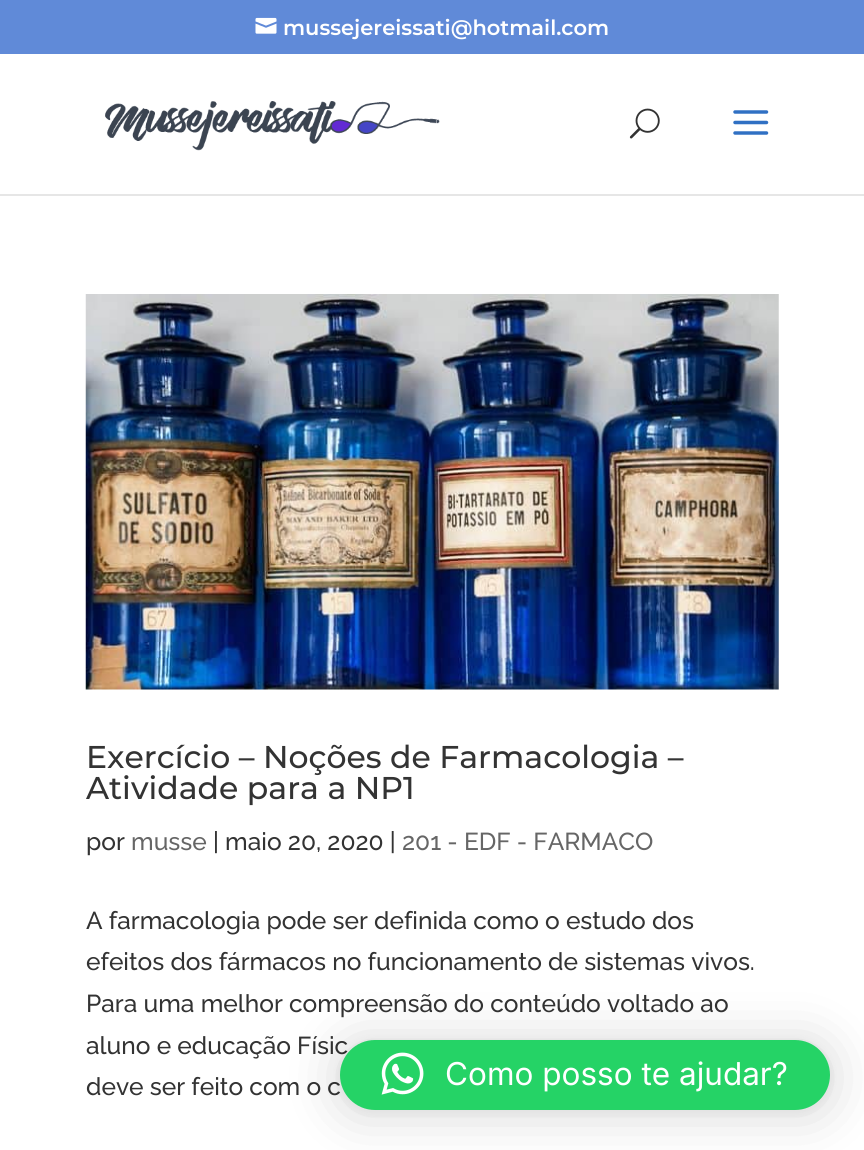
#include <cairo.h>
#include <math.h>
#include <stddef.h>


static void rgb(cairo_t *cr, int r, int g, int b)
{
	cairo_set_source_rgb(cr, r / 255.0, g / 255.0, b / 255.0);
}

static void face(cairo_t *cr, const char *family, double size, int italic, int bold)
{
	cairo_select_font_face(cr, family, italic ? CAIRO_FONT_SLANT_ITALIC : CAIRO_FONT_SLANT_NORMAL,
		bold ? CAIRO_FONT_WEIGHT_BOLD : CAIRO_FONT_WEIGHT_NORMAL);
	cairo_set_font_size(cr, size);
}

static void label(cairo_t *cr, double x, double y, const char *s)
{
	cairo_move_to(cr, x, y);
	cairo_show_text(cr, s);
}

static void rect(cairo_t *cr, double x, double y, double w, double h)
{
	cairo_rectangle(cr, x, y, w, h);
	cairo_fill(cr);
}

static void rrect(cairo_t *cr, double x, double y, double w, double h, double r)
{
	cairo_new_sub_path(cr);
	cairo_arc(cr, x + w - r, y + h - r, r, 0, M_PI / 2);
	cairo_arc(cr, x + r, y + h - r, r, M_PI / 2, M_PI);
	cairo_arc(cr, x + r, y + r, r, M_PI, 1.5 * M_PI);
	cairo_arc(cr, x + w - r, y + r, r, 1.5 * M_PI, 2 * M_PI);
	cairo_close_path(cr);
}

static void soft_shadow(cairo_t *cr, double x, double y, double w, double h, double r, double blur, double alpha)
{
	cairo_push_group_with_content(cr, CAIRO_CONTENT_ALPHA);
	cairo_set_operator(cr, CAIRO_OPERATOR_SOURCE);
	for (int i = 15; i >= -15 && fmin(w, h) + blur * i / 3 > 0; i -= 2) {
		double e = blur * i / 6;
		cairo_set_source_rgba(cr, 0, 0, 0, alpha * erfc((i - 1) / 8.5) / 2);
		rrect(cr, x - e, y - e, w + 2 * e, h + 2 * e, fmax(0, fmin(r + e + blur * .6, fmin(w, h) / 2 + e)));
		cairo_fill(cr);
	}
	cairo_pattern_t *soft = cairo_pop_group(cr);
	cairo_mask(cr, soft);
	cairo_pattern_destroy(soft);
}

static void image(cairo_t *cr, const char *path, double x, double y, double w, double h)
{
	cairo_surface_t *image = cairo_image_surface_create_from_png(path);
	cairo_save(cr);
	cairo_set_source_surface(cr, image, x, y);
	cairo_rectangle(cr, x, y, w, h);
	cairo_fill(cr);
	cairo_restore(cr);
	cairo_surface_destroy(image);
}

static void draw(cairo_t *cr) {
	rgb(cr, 255, 255, 255);
	cairo_paint(cr);
	rgb(cr, 96, 138, 216);
	rect(cr, 0, 0, 864, 54);
	image(cr, "image0.png", 255, 17, 22, 17);
	face(cr, "Montserrat SemiBold", 21, 0, 0);
	rgb(cr, 255, 255, 255);
	label(cr, 283, 35, "mussejereissati@hotmail.com");
	rgb(cr, 230, 230, 230);
	cairo_new_path(cr);
	cairo_move_to(cr, 0, 194);
	cairo_line_to(cr, 0, 196);
	cairo_line_to(cr, 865, 196);
	cairo_line_to(cr, 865, 56);
	cairo_line_to(cr, 864, 56);
	cairo_line_to(cr, 864, 194);
	cairo_close_path(cr);
	cairo_fill(cr);
	image(cr, "image1.png", 105, 101, 335, 50);
	image(cr, "image2.png", 629, 108, 31, 31);
	image(cr, "image3.png", 733, 110, 36, 25);
	image(cr, "image4.png", 85, 294, 694, 396);
	face(cr, "Montserrat Medium", 31.5, 0, 0);
	rgb(cr, 51, 51, 51);
	label(cr, 86, 768, "Exercício – Noções de Farmacologia –");
	label(cr, 86, 799, "Atividade para a NP1");
	face(cr, "Raleway Medium", 24.5, 0, 0);
	label(cr, 86, 850, "por");
	rgb(cr, 102, 102, 102);
	label(cr, 131, 850, "musse");
	rgb(cr, 51, 51, 51);
	label(cr, 213, 850, "| maio 20, 2020 |");
	rgb(cr, 102, 102, 102);
	label(cr, 402, 850, "201 - EDF - FARMACO");
	rgb(cr, 51, 51, 51);
	label(cr, 86, 929, "A farmacologia pode ser definida como o estudo dos");
	label(cr, 86, 970, "efeitos dos fármacos no funcionamento de sistemas vivos.");
	label(cr, 86, 1012, "Para uma melhor compreensão do conteúdo voltado ao");
	label(cr, 86, 1054, "aluno e educação Físic");
	label(cr, 86, 1095, "deve ser feito com o c");
	rgb(cr, 0, 0, 0);
	soft_shadow(cr, 340, 1043, 490, 70, 35, 28, 0.16);
	soft_shadow(cr, 340, 1041, 490, 70, 35, 5, 0.06);
	rgb(cr, 37, 211, 102);
	rrect(cr, 340, 1040, 490, 70, 35);
	cairo_fill(cr);
	image(cr, "image5.png", 381, 1052, 43, 43);
	face(cr, "Inter", 31.5, 0, 0);
	rgb(cr, 255, 255, 255);
	label(cr, 445, 1085, "Como posso te ajudar?");
}

int main(void) {
	cairo_surface_t *surface = cairo_image_surface_create(CAIRO_FORMAT_RGB24, 864, 1150);
	cairo_t *cr = cairo_create(surface);
	cairo_font_options_t *options = cairo_font_options_create();
	cairo_font_options_set_hint_metrics(options, CAIRO_HINT_METRICS_OFF);
	cairo_font_options_set_hint_style(options, CAIRO_HINT_STYLE_NONE);
	cairo_set_font_options(cr, options);
	cairo_set_miter_limit(cr, 4);
	draw(cr);
	cairo_surface_write_to_png(surface, "render.png");
	cairo_font_options_destroy(options);
	cairo_destroy(cr);
	cairo_surface_destroy(surface);
	return 0;
}
